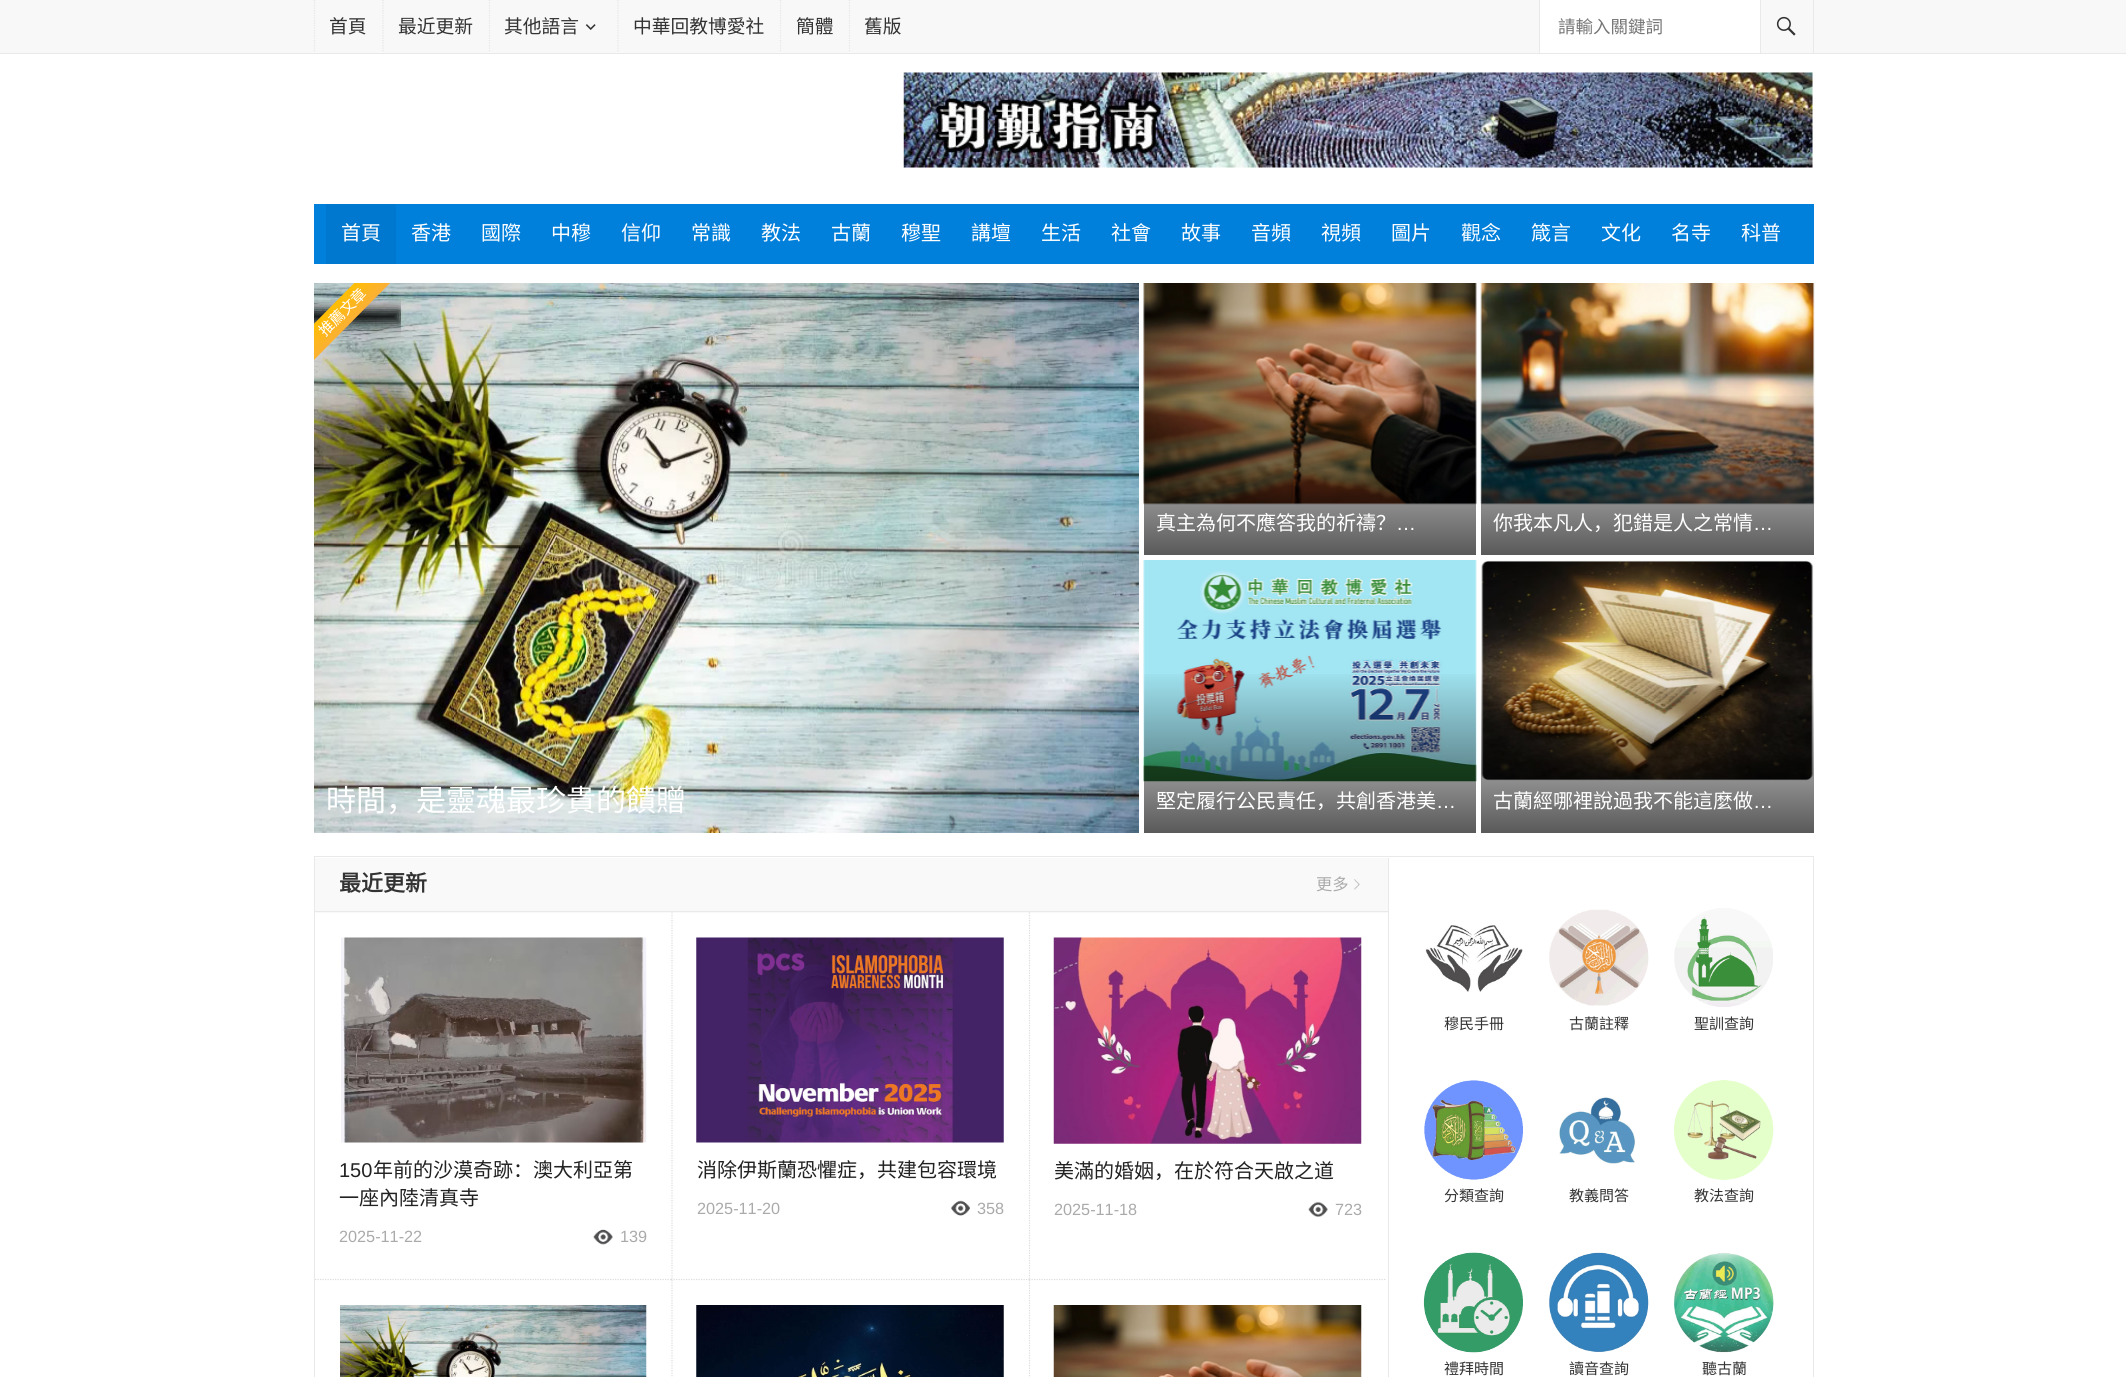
#include <cairo.h>
#include <math.h>
#include <stddef.h>


static void rgb(cairo_t *cr, int r, int g, int b)
{
	cairo_set_source_rgb(cr, r / 255.0, g / 255.0, b / 255.0);
}

static void face(cairo_t *cr, const char *family, double size, int italic, int bold)
{
	cairo_select_font_face(cr, family, italic ? CAIRO_FONT_SLANT_ITALIC : CAIRO_FONT_SLANT_NORMAL,
		bold ? CAIRO_FONT_WEIGHT_BOLD : CAIRO_FONT_WEIGHT_NORMAL);
	cairo_set_font_size(cr, size);
}

static void label(cairo_t *cr, double x, double y, const char *s)
{
	cairo_move_to(cr, x, y);
	cairo_show_text(cr, s);
}

static void rect(cairo_t *cr, double x, double y, double w, double h)
{
	cairo_rectangle(cr, x, y, w, h);
	cairo_fill(cr);
}

static void rrect(cairo_t *cr, double x, double y, double w, double h, double r)
{
	cairo_new_sub_path(cr);
	cairo_arc(cr, x + w - r, y + h - r, r, 0, M_PI / 2);
	cairo_arc(cr, x + r, y + h - r, r, M_PI / 2, M_PI);
	cairo_arc(cr, x + r, y + r, r, M_PI, 1.5 * M_PI);
	cairo_arc(cr, x + w - r, y + r, r, 1.5 * M_PI, 2 * M_PI);
	cairo_close_path(cr);
}

static void soft_shadow(cairo_t *cr, double x, double y, double w, double h, double r, double blur, double alpha)
{
	cairo_push_group_with_content(cr, CAIRO_CONTENT_ALPHA);
	cairo_set_operator(cr, CAIRO_OPERATOR_SOURCE);
	for (int i = 15; i >= -15 && fmin(w, h) + blur * i / 3 > 0; i -= 2) {
		double e = blur * i / 6;
		cairo_set_source_rgba(cr, 0, 0, 0, alpha * erfc((i - 1) / 8.5) / 2);
		rrect(cr, x - e, y - e, w + 2 * e, h + 2 * e, fmax(0, fmin(r + e + blur * .6, fmin(w, h) / 2 + e)));
		cairo_fill(cr);
	}
	cairo_pattern_t *soft = cairo_pop_group(cr);
	cairo_mask(cr, soft);
	cairo_pattern_destroy(soft);
}

static void image(cairo_t *cr, const char *path, double x, double y, double w, double h)
{
	cairo_surface_t *image = cairo_image_surface_create_from_png(path);
	cairo_save(cr);
	cairo_set_source_surface(cr, image, x, y);
	cairo_rectangle(cr, x, y, w, h);
	cairo_fill(cr);
	cairo_restore(cr);
	cairo_surface_destroy(image);
}

static void draw(cairo_t *cr) {
	cairo_pattern_t *gradient;
	rgb(cr, 255, 255, 255);
	cairo_paint(cr);
	rgb(cr, 248, 248, 248);
	rect(cr, 0, 0, 2126, 53);
	rgb(cr, 233, 233, 233);
	rect(cr, 0, 53, 2126, 1);
	cairo_new_path(cr);
	cairo_move_to(cr, 314.5, 0);
	cairo_line_to(cr, 314.5, 52.5);
	rgb(cr, 230, 230, 230);
	cairo_set_line_width(cr, 1.2);
	cairo_set_dash(cr, (double[]){1.25, 1.25}, 2, 0);
	cairo_stroke(cr);
	face(cr, "Noto Sans CJK SC", 18.75, 0, 0);
	rgb(cr, 51, 51, 51);
	label(cr, 329, 33, "首頁");
	cairo_new_path(cr);
	cairo_move_to(cr, 383, 0);
	cairo_line_to(cr, 383, 52.5);
	rgb(cr, 230, 230, 230);
	cairo_stroke(cr);
	rgb(cr, 51, 51, 51);
	label(cr, 398, 33, "最近更新");
	cairo_new_path(cr);
	cairo_move_to(cr, 489.5, 0);
	cairo_line_to(cr, 489.5, 52.5);
	rgb(cr, 230, 230, 230);
	cairo_stroke(cr);
	rgb(cr, 51, 51, 51);
	label(cr, 504, 33, "其他語言");
	image(cr, "image0.png", 585, 24, 11, 6);
	cairo_new_path(cr);
	cairo_move_to(cr, 618, 0);
	cairo_line_to(cr, 618, 52.5);
	rgb(cr, 230, 230, 230);
	cairo_stroke(cr);
	rgb(cr, 51, 51, 51);
	label(cr, 633, 33, "中華回教博愛社");
	cairo_new_path(cr);
	cairo_move_to(cr, 780.5, 0);
	cairo_line_to(cr, 780.5, 52.5);
	rgb(cr, 230, 230, 230);
	cairo_stroke(cr);
	rgb(cr, 51, 51, 51);
	label(cr, 796, 33, "簡體");
	cairo_new_path(cr);
	cairo_move_to(cr, 849.5, 0);
	cairo_line_to(cr, 849.5, 52.5);
	rgb(cr, 230, 230, 230);
	cairo_stroke(cr);
	rgb(cr, 51, 51, 51);
	label(cr, 864, 33, "舊版");
	rgb(cr, 255, 255, 255);
	rect(cr, 1540, 0, 220, 53);
	rgb(cr, 233, 233, 233);
	rect(cr, 1813, 0, 1, 53);
	rect(cr, 1539, 0, 1, 53);
	face(cr, "Noto Sans CJK SC", 17.5, 0, 0);
	rgb(cr, 117, 117, 117);
	label(cr, 1558, 33, "請輸入關鍵詞");
	rgb(cr, 233, 233, 233);
	rect(cr, 1760, 0, 1, 53);
	image(cr, "image1.png", 1776, 16, 20, 20);
	image(cr, "image2.png", 903, 72, 910, 96);
	rgb(cr, 0, 127, 219);
	rect(cr, 314, 204, 1500, 60);
	rgb(cr, 0, 120, 207);
	rect(cr, 326, 204, 70, 60);
	face(cr, "Noto Sans CJK SC", 20, 0, 0);
	rgb(cr, 255, 255, 255);
	label(cr, 341, 240, "首頁");
	label(cr, 411, 240, "香港");
	label(cr, 481, 240, "國際");
	label(cr, 551, 240, "中穆");
	label(cr, 621, 240, "信仰");
	label(cr, 691, 240, "常識");
	label(cr, 761, 240, "教法");
	label(cr, 831, 240, "古蘭");
	label(cr, 901, 240, "穆聖");
	label(cr, 971, 240, "講壇");
	label(cr, 1041, 240, "生活");
	label(cr, 1111, 240, "社會");
	label(cr, 1181, 240, "故事");
	label(cr, 1251, 240, "音頻");
	label(cr, 1321, 240, "視頻");
	label(cr, 1391, 240, "圖片");
	label(cr, 1461, 240, "觀念");
	label(cr, 1531, 240, "箴言");
	label(cr, 1601, 240, "文化");
	label(cr, 1671, 240, "名寺");
	label(cr, 1741, 240, "科普");
	image(cr, "image3.png", 314, 283, 825, 550);
	cairo_save(cr);
	cairo_rectangle(cr, 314, 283, 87, 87);
	cairo_clip(cr);
	rgb(cr, 0, 0, 0);
	soft_shadow(cr, 288, 310, 112, 13, 0, 6.5, 1);
	cairo_restore(cr);
	cairo_save(cr);
	cairo_rectangle(cr, 314, 283, 87, 87);
	cairo_clip(cr);
	gradient = cairo_pattern_create_linear(334, 304, 352, 321);
	cairo_pattern_add_color_stop_rgba(gradient, 0, 1, 0.745, 0.008, 1);
	cairo_pattern_add_color_stop_rgba(gradient, 1, 0.984, 0.69, 0.204, 1);
	cairo_set_source(cr, gradient);
	cairo_pattern_destroy(gradient);
	cairo_new_path(cr);
	cairo_move_to(cr, 290, 348);
	cairo_line_to(cr, 378, 259);
	cairo_line_to(cr, 396, 277);
	cairo_line_to(cr, 308, 366);
	cairo_close_path(cr);
	cairo_fill(cr);
	cairo_restore(cr);
	face(cr, "Noto Sans CJK SC", 15, 0, 0);
	cairo_save(cr);
	cairo_translate(cr, 325, 337);
	cairo_rotate(cr, -45 * M_PI / 180);
	label(cr, 0, 0, "推薦文章");
	cairo_restore(cr);
	face(cr, "Noto Sans CJK SC", 30, 0, 0);
	label(cr, 326, 811, "時間，是靈魂最珍貴的饋贈");
	image(cr, "image4.png", 1143, 283, 334, 222);
	gradient = cairo_pattern_create_linear(1313, 391, 1313, 555);
	cairo_pattern_add_color_stop_rgba(gradient, 0, 0, 0, 0, 0);
	cairo_pattern_add_color_stop_rgba(gradient, 1, 0, 0, 0, 0.65);
	cairo_set_source(cr, gradient);
	cairo_pattern_destroy(gradient);
	rect(cr, 1144, 396, 332, 159);
	face(cr, "Noto Sans CJK SC", 20, 0, 0);
	rgb(cr, 255, 255, 255);
	label(cr, 1156, 530, "真主為何不應答我的祈禱？");
	face(cr, "Liberation Sans", 20, 0, 0);
	label(cr, 1396, 530, "…");
	image(cr, "image5.png", 1480, 283, 335, 222);
	gradient = cairo_pattern_create_linear(1650, 391, 1650, 555);
	cairo_pattern_add_color_stop_rgba(gradient, 0, 0, 0, 0, 0);
	cairo_pattern_add_color_stop_rgba(gradient, 1, 0, 0, 0, 0.65);
	cairo_set_source(cr, gradient);
	cairo_pattern_destroy(gradient);
	rect(cr, 1481, 396, 333, 159);
	face(cr, "Noto Sans CJK SC", 20, 0, 0);
	rgb(cr, 255, 255, 255);
	label(cr, 1493, 530, "你我本凡人，犯錯是人之常情");
	face(cr, "Liberation Sans", 20, 0, 0);
	label(cr, 1753, 530, "…");
	image(cr, "image6.png", 1143, 560, 334, 222);
	gradient = cairo_pattern_create_linear(1313, 669, 1313, 833);
	cairo_pattern_add_color_stop_rgba(gradient, 0, 0, 0, 0, 0);
	cairo_pattern_add_color_stop_rgba(gradient, 1, 0, 0, 0, 0.65);
	cairo_set_source(cr, gradient);
	cairo_pattern_destroy(gradient);
	rect(cr, 1144, 674, 332, 159);
	face(cr, "Noto Sans CJK SC", 20, 0, 0);
	rgb(cr, 255, 255, 255);
	label(cr, 1156, 808, "堅定履行公民責任，共創香港美");
	face(cr, "Liberation Sans", 20, 0, 0);
	label(cr, 1436, 808, "…");
	image(cr, "image7.png", 1481, 560, 333, 221);
	gradient = cairo_pattern_create_linear(1650, 669, 1650, 833);
	cairo_pattern_add_color_stop_rgba(gradient, 0, 0, 0, 0, 0);
	cairo_pattern_add_color_stop_rgba(gradient, 1, 0, 0, 0, 0.65);
	cairo_set_source(cr, gradient);
	cairo_pattern_destroy(gradient);
	rect(cr, 1481, 674, 333, 159);
	face(cr, "Noto Sans CJK SC", 20, 0, 0);
	rgb(cr, 255, 255, 255);
	label(cr, 1493, 808, "古蘭經哪裡說過我不能這麼做");
	face(cr, "Liberation Sans", 20, 0, 0);
	label(cr, 1753, 808, "…");
	rgb(cr, 233, 233, 233);
	rect(cr, 314, 856, 1500, 1);
	rect(cr, 1813, 856, 1, 521);
	rect(cr, 314, 856, 1, 521);
	rect(cr, 1388, 858, 1, 519);
	rgb(cr, 249, 249, 249);
	rect(cr, 315, 858, 1073, 55);
	rgb(cr, 233, 233, 233);
	rect(cr, 315, 911, 1073, 1);
	face(cr, "Noto Sans CJK SC", 22, 0, 1);
	rgb(cr, 51, 51, 51);
	label(cr, 339, 891, "最近更新");
	image(cr, "image8.png", 1354, 879, 6, 11);
	face(cr, "Noto Sans CJK SC", 16.25, 0, 0);
	rgb(cr, 170, 170, 170);
	label(cr, 1316, 890, "更多");
	image(cr, "image9.png", 341, 937, 306, 206);
	face(cr, "Liberation Sans", 20, 0, 0);
	rgb(cr, 34, 34, 34);
	label(cr, 339, 1177, "150");
	face(cr, "Noto Sans CJK SC", 20, 0, 0);
	label(cr, 373, 1177, "年前的沙漠奇跡：澳大利亞第");
	label(cr, 339, 1205, "一座內陸清真寺");
	face(cr, "Liberation Sans", 16.25, 0, 0);
	rgb(cr, 170, 170, 170);
	label(cr, 339, 1242, "2025-11-22");
	image(cr, "image10.png", 593, 1229, 20, 16);
	label(cr, 620, 1242, "139");
	cairo_new_path(cr);
	cairo_move_to(cr, 671, 1279.5);
	cairo_line_to(cr, 1029, 1279.5);
	rgb(cr, 221, 221, 221);
	cairo_stroke(cr);
	cairo_new_path(cr);
	cairo_move_to(cr, 672, 912.5);
	cairo_line_to(cr, 672, 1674);
	cairo_stroke(cr);
	image(cr, "image11.png", 696, 937, 308, 206);
	face(cr, "Noto Sans CJK SC", 20, 0, 0);
	rgb(cr, 34, 34, 34);
	label(cr, 697, 1177, "消除伊斯蘭恐懼症，共建包容環境");
	face(cr, "Liberation Sans", 16.25, 0, 0);
	rgb(cr, 170, 170, 170);
	label(cr, 697, 1214, "2025-11-20");
	image(cr, "image12.png", 951, 1200, 19, 16);
	label(cr, 977, 1214, "358");
	cairo_new_path(cr);
	cairo_move_to(cr, 1029, 1279.5);
	cairo_line_to(cr, 1386, 1279.5);
	rgb(cr, 221, 221, 221);
	cairo_stroke(cr);
	cairo_new_path(cr);
	cairo_move_to(cr, 1029.5, 912.5);
	cairo_line_to(cr, 1029.5, 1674);
	cairo_stroke(cr);
	image(cr, "image13.png", 1053, 937, 309, 207);
	face(cr, "Noto Sans CJK SC", 20, 0, 0);
	rgb(cr, 34, 34, 34);
	label(cr, 1054, 1178, "美滿的婚姻，在於符合天啟之道");
	face(cr, "Liberation Sans", 16.25, 0, 0);
	rgb(cr, 170, 170, 170);
	label(cr, 1054, 1215, "2025-11-18");
	image(cr, "image14.png", 1308, 1201, 20, 16);
	label(cr, 1335, 1215, "723");
	cairo_new_path(cr);
	cairo_move_to(cr, 315, 1279.5);
	cairo_line_to(cr, 671, 1279.5);
	rgb(cr, 221, 221, 221);
	cairo_stroke(cr);
	image(cr, "image15.png", 340, 1305, 307, 72);
	image(cr, "image16.png", 696, 1305, 308, 72);
	image(cr, "image17.png", 1053, 1305, 309, 72);
	image(cr, "image18.png", 1425, 925, 98, 67);
	face(cr, "Noto Sans CJK SC", 15, 0, 0);
	rgb(cr, 51, 51, 51);
	label(cr, 1444, 1029, "穆民手冊");
	image(cr, "image19.png", 1549, 909, 100, 97);
	label(cr, 1569, 1029, "古蘭註釋");
	image(cr, "image20.png", 1674, 908, 99, 99);
	label(cr, 1694, 1029, "聖訓查詢");
	image(cr, "image21.png", 1424, 1080, 99, 100);
	label(cr, 1444, 1201, "分類查詢");
	image(cr, "image22.png", 1559, 1096, 77, 69);
	label(cr, 1569, 1201, "教義問答");
	image(cr, "image23.png", 1674, 1080, 100, 100);
	label(cr, 1694, 1201, "教法查詢");
	image(cr, "image24.png", 1423, 1252, 100, 101);
	label(cr, 1444, 1374, "禮拜時間");
	image(cr, "image25.png", 1549, 1252, 100, 100);
	label(cr, 1569, 1374, "讀音查詢");
	image(cr, "image26.png", 1673, 1252, 101, 101);
	label(cr, 1702, 1374, "聽古蘭");
}

int main(void) {
	cairo_surface_t *surface = cairo_image_surface_create(CAIRO_FORMAT_RGB24, 2126, 1377);
	cairo_t *cr = cairo_create(surface);
	cairo_font_options_t *options = cairo_font_options_create();
	cairo_font_options_set_hint_metrics(options, CAIRO_HINT_METRICS_OFF);
	cairo_font_options_set_hint_style(options, CAIRO_HINT_STYLE_NONE);
	cairo_set_font_options(cr, options);
	cairo_set_miter_limit(cr, 4);
	draw(cr);
	cairo_surface_write_to_png(surface, "render.png");
	cairo_font_options_destroy(options);
	cairo_destroy(cr);
	cairo_surface_destroy(surface);
	return 0;
}
